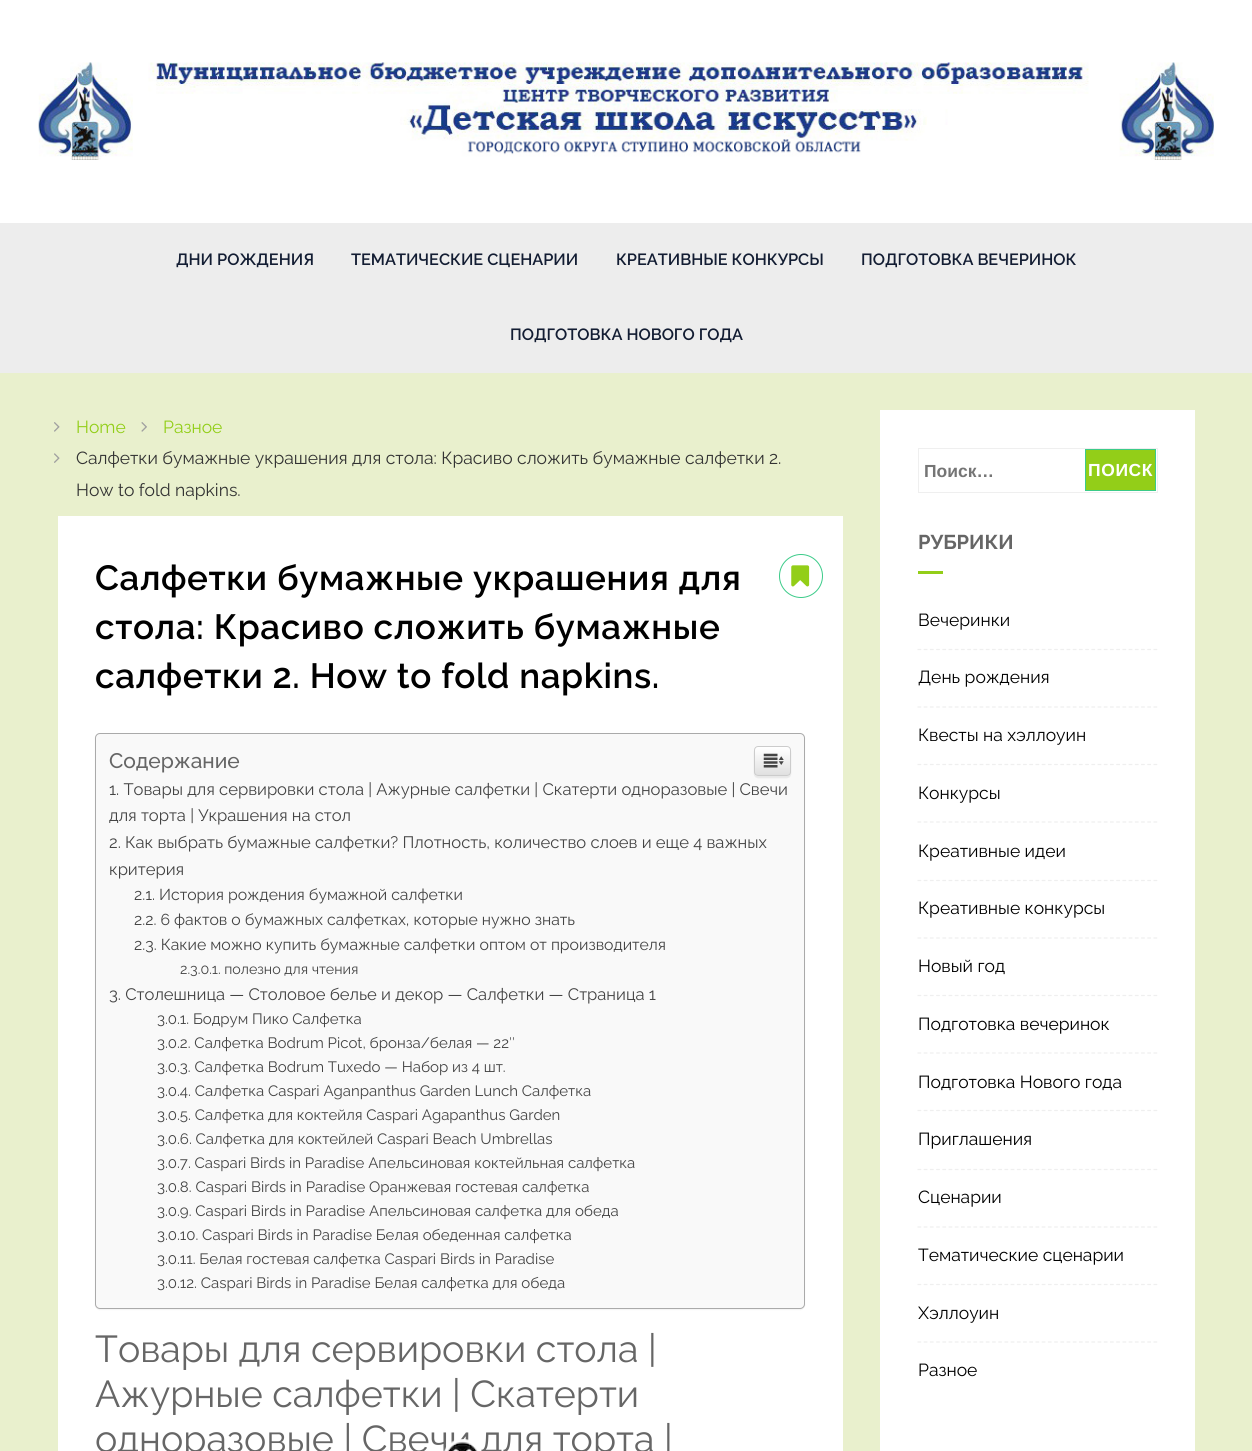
#include <cairo.h>
#include <math.h>
#include <stddef.h>


static void rgb(cairo_t *cr, int r, int g, int b)
{
	cairo_set_source_rgb(cr, r / 255.0, g / 255.0, b / 255.0);
}

static void face(cairo_t *cr, const char *family, double size, int italic, int bold)
{
	cairo_select_font_face(cr, family, italic ? CAIRO_FONT_SLANT_ITALIC : CAIRO_FONT_SLANT_NORMAL,
		bold ? CAIRO_FONT_WEIGHT_BOLD : CAIRO_FONT_WEIGHT_NORMAL);
	cairo_set_font_size(cr, size);
}

static void label(cairo_t *cr, double x, double y, const char *s)
{
	cairo_move_to(cr, x, y);
	cairo_show_text(cr, s);
}

static void tracked(cairo_t *cr, double x, double y, const char *s, double letter, double word)
{
	cairo_move_to(cr, x, y);
	while (*s) {
		char ch[5] = {0};
		int n = 0;
		do ch[n++] = *s++; while ((*s & 0xC0) == 0x80);
		cairo_show_text(cr, ch);
		cairo_rel_move_to(cr, letter + word * (*ch == ' '), 0);
	}
}

static void rect(cairo_t *cr, double x, double y, double w, double h)
{
	cairo_rectangle(cr, x, y, w, h);
	cairo_fill(cr);
}

static void rrect(cairo_t *cr, double x, double y, double w, double h, double r)
{
	cairo_new_sub_path(cr);
	cairo_arc(cr, x + w - r, y + h - r, r, 0, M_PI / 2);
	cairo_arc(cr, x + r, y + h - r, r, M_PI / 2, M_PI);
	cairo_arc(cr, x + r, y + r, r, M_PI, 1.5 * M_PI);
	cairo_arc(cr, x + w - r, y + r, r, 1.5 * M_PI, 2 * M_PI);
	cairo_close_path(cr);
}

static void soft_shadow(cairo_t *cr, double x, double y, double w, double h, double r, double blur, double alpha)
{
	cairo_push_group_with_content(cr, CAIRO_CONTENT_ALPHA);
	cairo_set_operator(cr, CAIRO_OPERATOR_SOURCE);
	for (int i = 15; i >= -15 && fmin(w, h) + blur * i / 3 > 0; i -= 2) {
		double e = blur * i / 6;
		cairo_set_source_rgba(cr, 0, 0, 0, alpha * erfc((i - 1) / 8.5) / 2);
		rrect(cr, x - e, y - e, w + 2 * e, h + 2 * e, fmax(0, fmin(r + e + blur * .6, fmin(w, h) / 2 + e)));
		cairo_fill(cr);
	}
	cairo_pattern_t *soft = cairo_pop_group(cr);
	cairo_mask(cr, soft);
	cairo_pattern_destroy(soft);
}

static void image(cairo_t *cr, const char *path, double x, double y, double w, double h)
{
	cairo_surface_t *image = cairo_image_surface_create_from_png(path);
	cairo_save(cr);
	cairo_set_source_surface(cr, image, x, y);
	cairo_rectangle(cr, x, y, w, h);
	cairo_fill(cr);
	cairo_restore(cr);
	cairo_surface_destroy(image);
}

static void draw(cairo_t *cr) {
	cairo_pattern_t *gradient;
	rgb(cr, 233, 240, 205);
	cairo_paint(cr);
	rgb(cr, 255, 255, 255);
	rect(cr, 0, 0, 1252, 223);
	image(cr, "image0.png", 38, 62, 1176, 98);
	rgb(cr, 237, 237, 237);
	rect(cr, 0, 223, 1252, 150);
	face(cr, "Raleway SemiBold", 16.25, 0, 0);
	rgb(cr, 19, 29, 51);
	label(cr, 176, 265, "ДНИ РОЖДЕНИЯ");
	label(cr, 351, 265, "ТЕМАТИЧЕСКИЕ СЦЕНАРИИ");
	label(cr, 616, 265, "КРЕАТИВНЫЕ КОНКУРСЫ");
	label(cr, 861, 265, "ПОДГОТОВКА ВЕЧЕРИНОК");
	label(cr, 510, 340, "ПОДГОТОВКА НОВОГО ГОДА");
	image(cr, "image1.png", 54, 422, 6, 10);
	face(cr, "Raleway", 17.5, 0, 0);
	rgb(cr, 146, 206, 24);
	label(cr, 76, 433, "Home");
	image(cr, "image2.png", 141, 422, 6, 10);
	label(cr, 163, 433, "Разное");
	image(cr, "image3.png", 54, 453, 6, 10);
	rgb(cr, 51, 51, 51);
	label(cr, 76, 464, "Салфетки бумажные украшения для стола: Красиво сложить бумажные салфетки 2.");
	label(cr, 76, 496, "How to fold napkins.");
	rgb(cr, 255, 255, 255);
	rect(cr, 58, 516, 785, 935);
	face(cr, "Raleway SemiBold", 35, 0, 0);
	rgb(cr, 0, 0, 0);
	tracked(cr, 95, 590, "Салфетки бумажные украшения для", 0.6, 0);
	tracked(cr, 95, 639, "стола: Красиво сложить бумажные", 0.6, 0);
	tracked(cr, 95, 688, "салфетки 2. How to fold napkins.", 0.6, 0);
	cairo_new_path(cr);
	cairo_arc(cr, 801, 576, 21.5, 0, 2 * M_PI);
	rgb(cr, 60, 203, 137);
	cairo_set_line_width(cr, 1);
	cairo_stroke(cr);
	image(cr, "image4.png", 791, 565, 19, 22);
	rgb(cr, 0, 0, 0);
	soft_shadow(cr, 95, 734, 710, 576, 5, 0.5, 0.05);
	rgb(cr, 249, 249, 249);
	rrect(cr, 95.5, 733.5, 709, 575, 4.5);
	cairo_fill_preserve(cr);
	rgb(cr, 170, 170, 170);
	cairo_stroke(cr);
	face(cr, "Raleway Medium", 21, 0, 0);
	rgb(cr, 102, 102, 102);
	label(cr, 109, 768, "Содержание");
	rgb(cr, 0, 0, 0);
	soft_shadow(cr, 754, 748, 37, 30, 4, 0.5, 0.07);
	rgb(cr, 255, 255, 255);
	rrect(cr, 754, 746, 37, 30, 4);
	cairo_fill(cr);
	cairo_save(cr);
	rrect(cr, 754, 746, 37, 30, 4);
	cairo_clip(cr);
	gradient = cairo_pattern_create_linear(773, 748, 773, 775);
	cairo_pattern_add_color_stop_rgba(gradient, 0, 1, 1, 1, 1);
	cairo_pattern_add_color_stop_rgba(gradient, 1, 0.878, 0.878, 0.878, 1);
	cairo_set_source(cr, gradient);
	cairo_pattern_destroy(gradient);
	rect(cr, 754, 748, 37, 27);
	cairo_restore(cr);
	rrect(cr, 754.5, 746.5, 36, 29, 3.5);
	rgb(cr, 204, 204, 204);
	cairo_stroke(cr);
	image(cr, "image5.png", 763, 753, 21, 15);
	face(cr, "Raleway", 16.6, 0, 0);
	rgb(cr, 68, 68, 68);
	label(cr, 109, 795, "1. Товары для сервировки стола | Ажурные салфетки | Скатерти одноразовые | Свечи");
	label(cr, 109, 821, "для торта | Украшения на стол");
	label(cr, 109, 848, "2. Как выбрать бумажные салфетки? Плотность, количество слоев и еще 4 важных");
	label(cr, 109, 875, "критерия");
	face(cr, "Raleway", 15.8, 0, 0);
	label(cr, 134, 900, "2.1. История рождения бумажной салфетки");
	label(cr, 134, 925, "2.2. 6 фактов о бумажных салфетках, которые нужно знать");
	label(cr, 134, 950, "2.3. Какие можно купить бумажные салфетки оптом от производителя");
	face(cr, "Raleway", 14.25, 0, 0);
	label(cr, 180, 974, "2.3.0.1. полезно для чтения");
	face(cr, "Raleway", 16.6, 0, 0);
	label(cr, 109, 1000, "3. Столешница — Столовое белье и декор — Салфетки — Страница 1");
	face(cr, "Raleway", 15, 0, 0);
	label(cr, 157, 1024, "3.0.1. Бодрум Пико Салфетка");
	label(cr, 157, 1048, "3.0.2. Салфетка Bodrum Picot, бронза/белая — 22″");
	label(cr, 157, 1072, "3.0.3. Салфетка Bodrum Tuxedo — Набор из 4 шт.");
	label(cr, 157, 1096, "3.0.4. Салфетка Caspari Aganpanthus Garden Lunch Салфетка");
	label(cr, 157, 1120, "3.0.5. Салфетка для коктейля Caspari Agapanthus Garden");
	label(cr, 157, 1144, "3.0.6. Салфетка для коктейлей Caspari Beach Umbrellas");
	label(cr, 157, 1168, "3.0.7. Caspari Birds in Paradise Апельсиновая коктейльная салфетка");
	label(cr, 157, 1192, "3.0.8. Caspari Birds in Paradise Оранжевая гостевая салфетка");
	label(cr, 157, 1216, "3.0.9. Caspari Birds in Paradise Апельсиновая салфетка для обеда");
	label(cr, 157, 1240, "3.0.10. Caspari Birds in Paradise Белая обеденная салфетка");
	label(cr, 157, 1264, "3.0.11. Белая гостевая салфетка Caspari Birds in Paradise");
	label(cr, 157, 1288, "3.0.12. Caspari Birds in Paradise Белая салфетка для обеда");
	face(cr, "Raleway", 37.5, 0, 0);
	rgb(cr, 102, 102, 102);
	label(cr, 95, 1362, "Товары для сервировки стола |");
	label(cr, 95, 1407, "Ажурные салфетки | Скатерти");
	label(cr, 95, 1452, "одноразовые | Свечи для торта |");
	image(cr, "image6.png", 443, 1439, 39, 12);
	rgb(cr, 255, 255, 255);
	rect(cr, 880, 410, 315, 1041);
	cairo_rectangle(cr, 918.5, 448.5, 239, 44);
	rgb(cr, 239, 239, 239);
	cairo_stroke(cr);
	face(cr, "Liberation Sans", 17.5, 0, 1);
	rgb(cr, 117, 117, 117);
	label(cr, 924, 477, "Поиск…");
	rgb(cr, 147, 206, 24);
	cairo_rectangle(cr, 1085.5, 449.5, 70, 41);
	cairo_fill_preserve(cr);
	rgb(cr, 60, 203, 137);
	cairo_stroke(cr);
	rgb(cr, 255, 255, 255);
	tracked(cr, 1088, 476, "ПОИСК", 0.6, 0);
	face(cr, "Raleway", 20, 0, 1);
	rgb(cr, 102, 102, 102);
	label(cr, 918, 549, "РУБРИКИ");
	rgb(cr, 147, 206, 24);
	rect(cr, 918, 571, 25, 3);
	cairo_new_path(cr);
	cairo_move_to(cr, 917.5, 649.5);
	cairo_line_to(cr, 1157.5, 649.5);
	rgb(cr, 239, 239, 239);
	cairo_set_line_width(cr, 1.2);
	cairo_set_dash(cr, (double[]){3.75, 2.46}, 2, 0);
	cairo_stroke(cr);
	face(cr, "Raleway", 17.5, 0, 0);
	rgb(cr, 0, 0, 0);
	label(cr, 918, 626, "Вечеринки");
	cairo_new_path(cr);
	cairo_move_to(cr, 917.5, 707);
	cairo_line_to(cr, 1157.5, 707);
	rgb(cr, 239, 239, 239);
	cairo_stroke(cr);
	rgb(cr, 0, 0, 0);
	label(cr, 918, 683, "День рождения");
	cairo_new_path(cr);
	cairo_move_to(cr, 917.5, 764.5);
	cairo_line_to(cr, 1157.5, 764.5);
	rgb(cr, 239, 239, 239);
	cairo_stroke(cr);
	rgb(cr, 0, 0, 0);
	label(cr, 918, 741, "Квесты на хэллоуин");
	cairo_new_path(cr);
	cairo_move_to(cr, 917.5, 822);
	cairo_line_to(cr, 1157.5, 822);
	rgb(cr, 239, 239, 239);
	cairo_stroke(cr);
	rgb(cr, 0, 0, 0);
	label(cr, 918, 799, "Конкурсы");
	cairo_new_path(cr);
	cairo_move_to(cr, 917.5, 880.5);
	cairo_line_to(cr, 1157.5, 880.5);
	rgb(cr, 239, 239, 239);
	cairo_stroke(cr);
	rgb(cr, 0, 0, 0);
	label(cr, 918, 857, "Креативные идеи");
	cairo_new_path(cr);
	cairo_move_to(cr, 917.5, 938);
	cairo_line_to(cr, 1157.5, 938);
	rgb(cr, 239, 239, 239);
	cairo_stroke(cr);
	rgb(cr, 0, 0, 0);
	label(cr, 918, 914, "Креативные конкурсы");
	cairo_new_path(cr);
	cairo_move_to(cr, 917.5, 995.5);
	cairo_line_to(cr, 1157.5, 995.5);
	rgb(cr, 239, 239, 239);
	cairo_stroke(cr);
	rgb(cr, 0, 0, 0);
	label(cr, 918, 972, "Новый год");
	cairo_new_path(cr);
	cairo_move_to(cr, 917.5, 1053);
	cairo_line_to(cr, 1157.5, 1053);
	rgb(cr, 239, 239, 239);
	cairo_stroke(cr);
	rgb(cr, 0, 0, 0);
	label(cr, 918, 1030, "Подготовка вечеринок");
	cairo_new_path(cr);
	cairo_move_to(cr, 917.5, 1110.5);
	cairo_line_to(cr, 1157.5, 1110.5);
	rgb(cr, 239, 239, 239);
	cairo_stroke(cr);
	rgb(cr, 0, 0, 0);
	label(cr, 918, 1088, "Подготовка Нового года");
	cairo_new_path(cr);
	cairo_move_to(cr, 917.5, 1169.5);
	cairo_line_to(cr, 1157.5, 1169.5);
	rgb(cr, 239, 239, 239);
	cairo_stroke(cr);
	rgb(cr, 0, 0, 0);
	label(cr, 918, 1145, "Приглашения");
	cairo_new_path(cr);
	cairo_move_to(cr, 917.5, 1227);
	cairo_line_to(cr, 1157.5, 1227);
	rgb(cr, 239, 239, 239);
	cairo_stroke(cr);
	rgb(cr, 0, 0, 0);
	label(cr, 918, 1203, "Сценарии");
	cairo_new_path(cr);
	cairo_move_to(cr, 917.5, 1284.5);
	cairo_line_to(cr, 1157.5, 1284.5);
	rgb(cr, 239, 239, 239);
	cairo_stroke(cr);
	rgb(cr, 0, 0, 0);
	label(cr, 918, 1261, "Тематические сценарии");
	cairo_new_path(cr);
	cairo_move_to(cr, 917.5, 1342);
	cairo_line_to(cr, 1157.5, 1342);
	rgb(cr, 239, 239, 239);
	cairo_stroke(cr);
	rgb(cr, 0, 0, 0);
	label(cr, 918, 1319, "Хэллоуин");
	label(cr, 918, 1376, "Разное");
}

int main(void) {
	cairo_surface_t *surface = cairo_image_surface_create(CAIRO_FORMAT_RGB24, 1252, 1451);
	cairo_t *cr = cairo_create(surface);
	cairo_font_options_t *options = cairo_font_options_create();
	cairo_font_options_set_hint_metrics(options, CAIRO_HINT_METRICS_OFF);
	cairo_font_options_set_hint_style(options, CAIRO_HINT_STYLE_NONE);
	cairo_set_font_options(cr, options);
	cairo_set_miter_limit(cr, 4);
	draw(cr);
	cairo_surface_write_to_png(surface, "render.png");
	cairo_font_options_destroy(options);
	cairo_destroy(cr);
	cairo_surface_destroy(surface);
	return 0;
}
